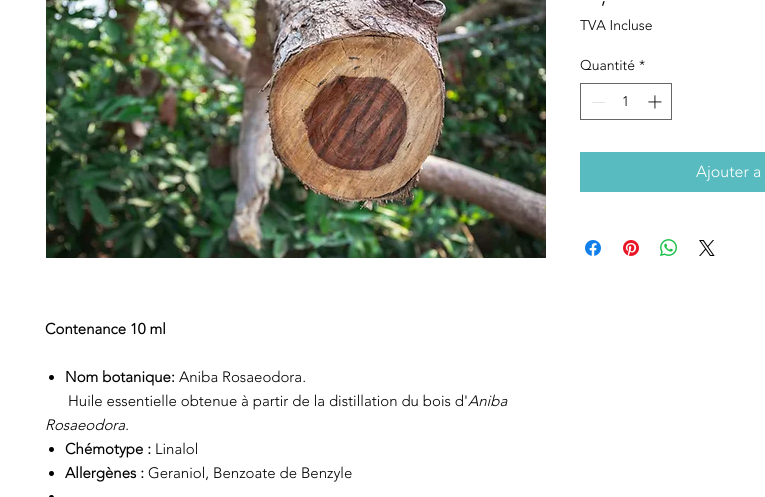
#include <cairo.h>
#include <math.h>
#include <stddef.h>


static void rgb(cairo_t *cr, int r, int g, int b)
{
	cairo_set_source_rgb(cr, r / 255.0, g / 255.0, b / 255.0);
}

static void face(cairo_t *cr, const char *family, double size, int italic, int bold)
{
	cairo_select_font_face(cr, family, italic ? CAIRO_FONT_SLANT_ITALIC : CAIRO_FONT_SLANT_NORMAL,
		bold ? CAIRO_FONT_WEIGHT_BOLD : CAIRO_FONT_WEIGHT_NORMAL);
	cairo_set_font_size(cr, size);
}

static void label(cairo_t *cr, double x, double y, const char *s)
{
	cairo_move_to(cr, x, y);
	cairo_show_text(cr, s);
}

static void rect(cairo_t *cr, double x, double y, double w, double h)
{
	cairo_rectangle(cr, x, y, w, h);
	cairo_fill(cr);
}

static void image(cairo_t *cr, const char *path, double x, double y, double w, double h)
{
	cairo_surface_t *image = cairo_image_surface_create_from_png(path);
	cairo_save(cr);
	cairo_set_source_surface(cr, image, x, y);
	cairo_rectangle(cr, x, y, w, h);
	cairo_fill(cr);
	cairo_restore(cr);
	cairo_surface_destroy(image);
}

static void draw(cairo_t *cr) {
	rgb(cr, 255, 255, 255);
	cairo_paint(cr);
	face(cr, "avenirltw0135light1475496 Light", 20, 0, 0);
	rgb(cr, 0, 0, 0);
	label(cr, 601, 3, ",");
	face(cr, "avenirltw0135light1475496 Light", 14, 0, 0);
	label(cr, 580, 30, "TVA Incluse");
	label(cr, 580, 70, "Quantité");
	label(cr, 639, 70, "*");
	cairo_rectangle(cr, 580.5, 83.5, 91, 36);
	rgb(cr, 102, 102, 102);
	cairo_set_line_width(cr, 1);
	cairo_stroke(cr);
	rgb(cr, 227, 227, 227);
	rect(cr, 592, 102, 13, 1);
	rgb(cr, 0, 0, 0);
	label(cr, 622, 106, "1");
	image(cr, "image0.png", 648, 95, 14, 14);
	rgb(cr, 87, 187, 191);
	rect(cr, 580, 152, 185, 40);
	face(cr, "avenirltw0135light1475496 Light", 16, 0, 0);
	rgb(cr, 255, 255, 255);
	label(cr, 696, 177, "Ajouter a");
	image(cr, "image1.png", 585, 240, 16, 16);
	image(cr, "image2.png", 623, 240, 16, 16);
	image(cr, "image3.png", 660, 239, 17, 17);
	image(cr, "image4.png", 699, 240, 16, 16);
	image(cr, "image5.png", 46, 0, 500, 258);
	face(cr, "avenirltw0135light1475496", 15, 0, 1);
	rgb(cr, 0, 0, 0);
	label(cr, 45, 334, "Contenance 10 ml");
	cairo_new_path(cr);
	cairo_arc(cr, 51.5, 377.5, 2.5, 0, 2 * M_PI);
	cairo_fill(cr);
	label(cr, 65, 382, "Nom botanique:");
	face(cr, "avenirltw0135light1475496 Light", 15, 0, 0);
	label(cr, 179, 382, "Aniba Rosaeodora.");
	label(cr, 68, 406, "Huile essentielle obtenue à partir de la distillation du bois d'");
	face(cr, "avenirltw0135light1475496 Light", 15, 1, 0);
	label(cr, 468, 406, "Aniba");
	label(cr, 45, 430, "Rosaeodora.");
	cairo_new_path(cr);
	cairo_arc(cr, 51.5, 449.5, 2.5, 0, 2 * M_PI);
	cairo_fill(cr);
	face(cr, "avenirltw0135light1475496", 15, 0, 1);
	label(cr, 65, 454, "Chémotype :");
	face(cr, "avenirltw0135light1475496 Light", 15, 0, 0);
	label(cr, 155, 454, "Linalol");
	cairo_new_path(cr);
	cairo_arc(cr, 51.5, 473.5, 2.5, 0, 2 * M_PI);
	cairo_fill(cr);
	face(cr, "avenirltw0135light1475496", 15, 0, 1);
	label(cr, 65, 478, "Allergènes :");
	face(cr, "avenirltw0135light1475496 Light", 15, 0, 0);
	label(cr, 148, 478, "Geraniol, Benzoate de Benzyle");
	cairo_new_path(cr);
	cairo_arc(cr, 51.5, 497.5, 2.5, 0, 2 * M_PI);
	cairo_fill(cr);
}

int main(void) {
	cairo_surface_t *surface = cairo_image_surface_create(CAIRO_FORMAT_RGB24, 765, 497);
	cairo_t *cr = cairo_create(surface);
	cairo_font_options_t *options = cairo_font_options_create();
	cairo_font_options_set_hint_metrics(options, CAIRO_HINT_METRICS_OFF);
	cairo_font_options_set_hint_style(options, CAIRO_HINT_STYLE_NONE);
	cairo_set_font_options(cr, options);
	cairo_set_miter_limit(cr, 4);
	draw(cr);
	cairo_surface_write_to_png(surface, "render.png");
	cairo_font_options_destroy(options);
	cairo_destroy(cr);
	cairo_surface_destroy(surface);
	return 0;
}
